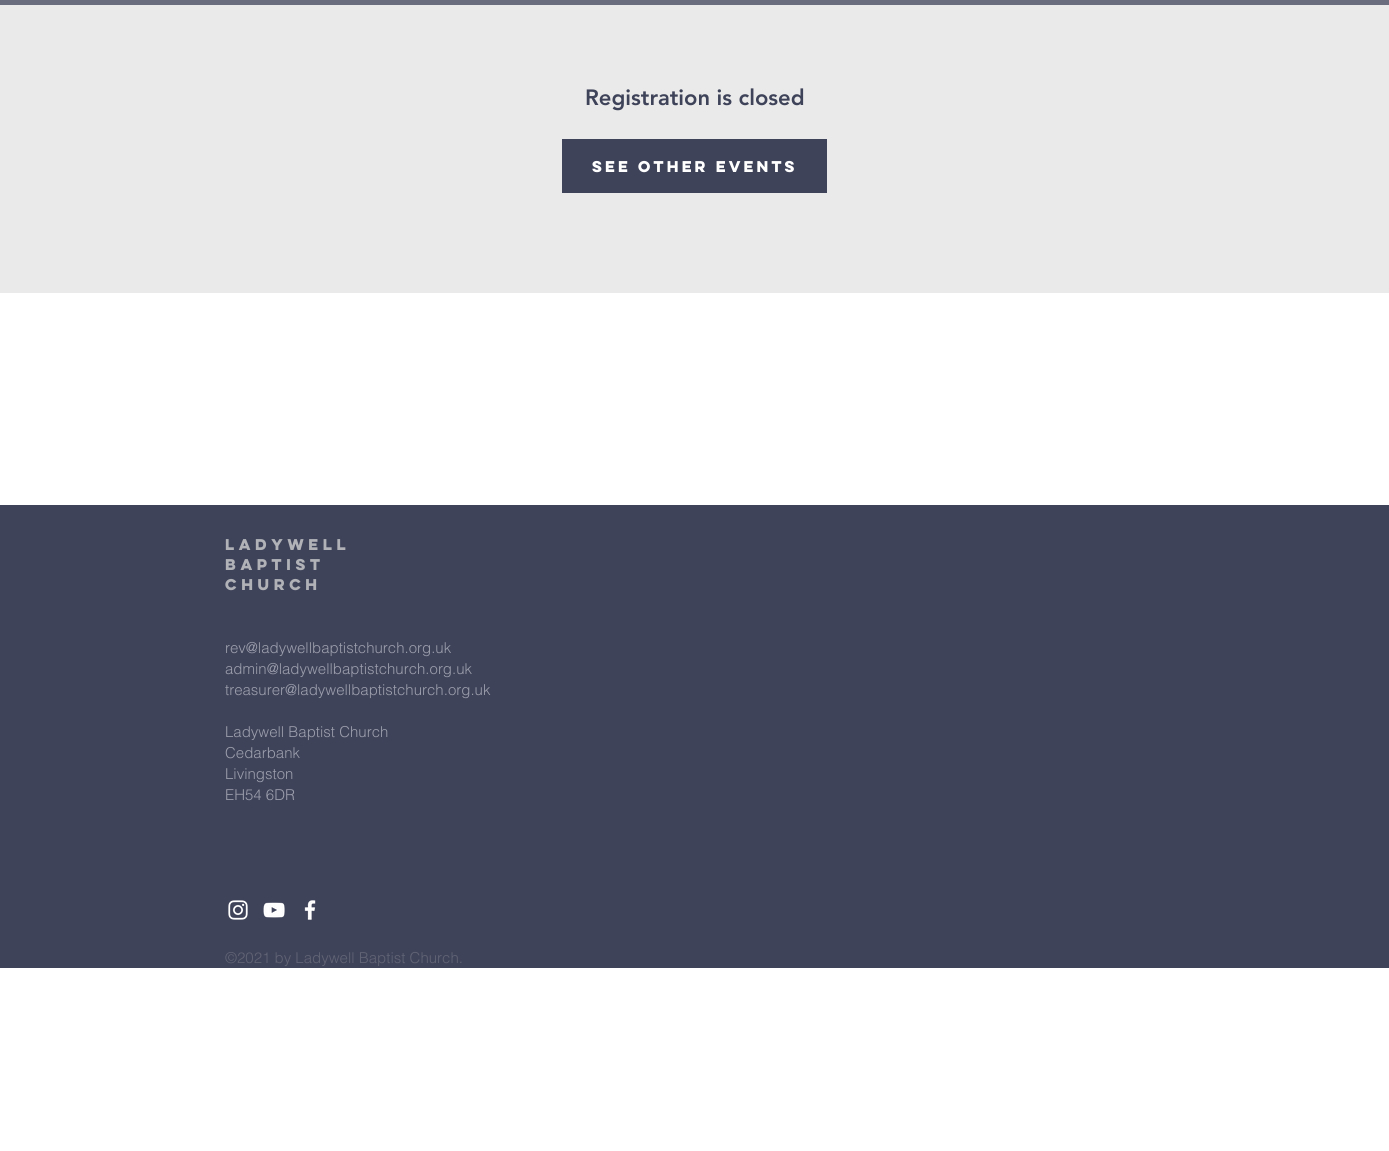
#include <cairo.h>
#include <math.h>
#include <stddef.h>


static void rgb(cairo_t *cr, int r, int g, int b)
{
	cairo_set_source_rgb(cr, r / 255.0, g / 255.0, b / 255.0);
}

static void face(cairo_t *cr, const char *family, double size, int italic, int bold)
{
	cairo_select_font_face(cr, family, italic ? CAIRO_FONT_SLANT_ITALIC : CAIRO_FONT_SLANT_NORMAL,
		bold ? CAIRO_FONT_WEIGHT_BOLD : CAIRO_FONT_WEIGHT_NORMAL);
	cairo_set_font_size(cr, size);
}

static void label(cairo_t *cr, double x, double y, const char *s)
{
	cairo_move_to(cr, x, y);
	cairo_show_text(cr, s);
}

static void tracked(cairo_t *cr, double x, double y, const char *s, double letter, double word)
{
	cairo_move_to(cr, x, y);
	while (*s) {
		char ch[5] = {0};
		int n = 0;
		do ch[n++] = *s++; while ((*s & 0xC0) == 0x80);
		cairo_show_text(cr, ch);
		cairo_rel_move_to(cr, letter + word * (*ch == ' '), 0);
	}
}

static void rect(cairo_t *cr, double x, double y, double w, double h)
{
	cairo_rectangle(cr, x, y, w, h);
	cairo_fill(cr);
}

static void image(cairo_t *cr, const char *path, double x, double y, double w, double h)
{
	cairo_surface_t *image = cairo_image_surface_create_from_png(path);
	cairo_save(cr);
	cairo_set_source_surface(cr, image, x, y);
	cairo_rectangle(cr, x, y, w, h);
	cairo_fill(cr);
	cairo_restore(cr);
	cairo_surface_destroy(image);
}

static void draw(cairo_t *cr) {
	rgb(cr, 255, 255, 255);
	cairo_paint(cr);
	rgb(cr, 106, 109, 125);
	rect(cr, 0, 0, 1389, 5);
	rgb(cr, 234, 234, 234);
	rect(cr, 0, 5, 1389, 288);
	face(cr, "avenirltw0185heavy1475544 Black", 22, 0, 0);
	rgb(cr, 63, 67, 89);
	label(cr, 585, 105, "Registration is closed");
	rect(cr, 562, 139, 265, 54);
	face(cr, "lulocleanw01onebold", 14, 0, 1);
	rgb(cr, 255, 255, 255);
	label(cr, 592, 172, "See other events");
	rgb(cr, 63, 67, 89);
	rect(cr, 0, 505, 1389, 463);
	rgb(cr, 176, 178, 184);
	tracked(cr, 225, 550, "ladywell", 1.5, 0);
	tracked(cr, 225, 570, "Baptist", 1.5, 0);
	tracked(cr, 225, 590, "church", 1.5, 0);
	face(cr, "helvetica Light", 15, 0, 0);
	rgb(cr, 155, 158, 172);
	label(cr, 225, 653, "rev@ladywellbaptistchurch.org.uk");
	label(cr, 225, 674, "admin@ladywellbaptistchurch.org.uk");
	label(cr, 225, 695, "treasurer@ladywellbaptistchurch.org.uk");
	label(cr, 225, 737, "Ladywell Baptist Church");
	label(cr, 225, 758, "Cedarbank");
	label(cr, 225, 779, "Livingston");
	label(cr, 225, 800, "EH54 6DR");
	image(cr, "image0.png", 228, 900, 20, 20);
	image(cr, "image1.png", 263, 902, 22, 16);
	image(cr, "image2.png", 304, 900, 12, 20);
	rgb(cr, 97, 100, 117);
	label(cr, 225, 963, "©2021 by Ladywell Baptist Church.");
}

int main(void) {
	cairo_surface_t *surface = cairo_image_surface_create(CAIRO_FORMAT_RGB24, 1389, 1151);
	cairo_t *cr = cairo_create(surface);
	cairo_font_options_t *options = cairo_font_options_create();
	cairo_font_options_set_hint_metrics(options, CAIRO_HINT_METRICS_OFF);
	cairo_font_options_set_hint_style(options, CAIRO_HINT_STYLE_NONE);
	cairo_set_font_options(cr, options);
	cairo_set_miter_limit(cr, 4);
	draw(cr);
	cairo_surface_write_to_png(surface, "render.png");
	cairo_font_options_destroy(options);
	cairo_destroy(cr);
	cairo_surface_destroy(surface);
	return 0;
}
